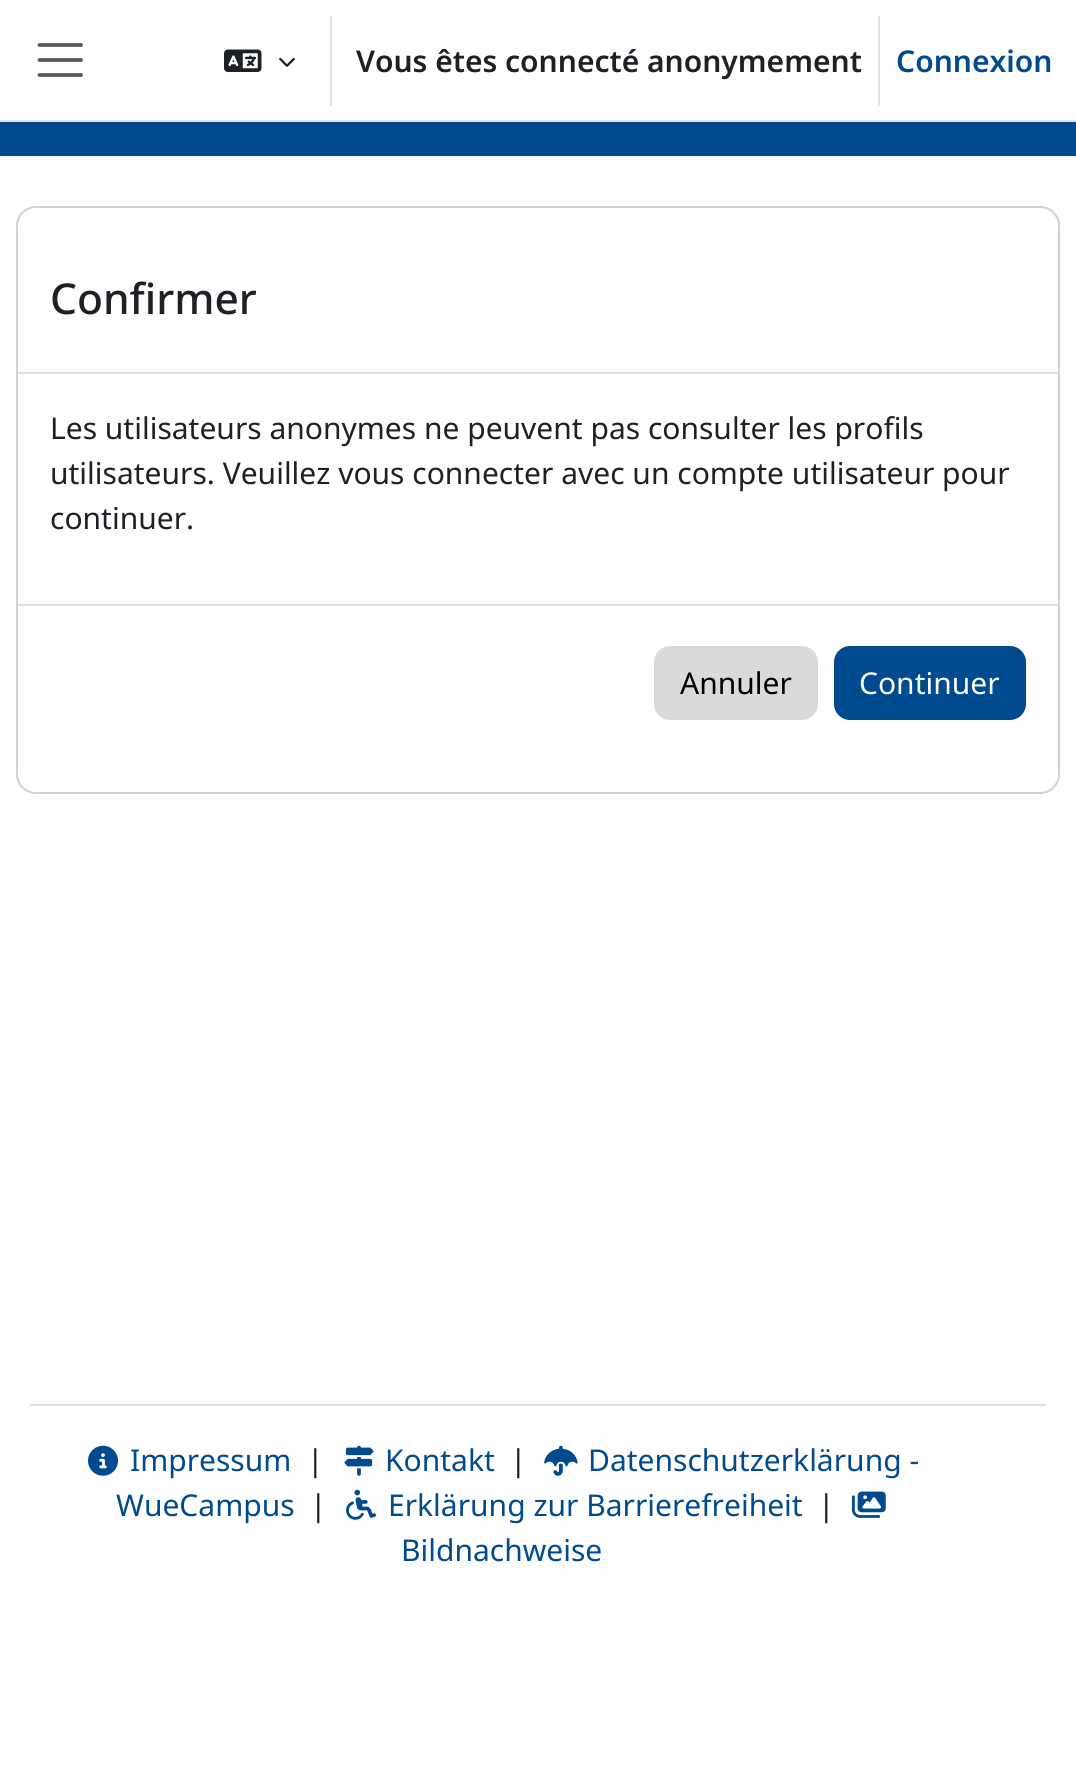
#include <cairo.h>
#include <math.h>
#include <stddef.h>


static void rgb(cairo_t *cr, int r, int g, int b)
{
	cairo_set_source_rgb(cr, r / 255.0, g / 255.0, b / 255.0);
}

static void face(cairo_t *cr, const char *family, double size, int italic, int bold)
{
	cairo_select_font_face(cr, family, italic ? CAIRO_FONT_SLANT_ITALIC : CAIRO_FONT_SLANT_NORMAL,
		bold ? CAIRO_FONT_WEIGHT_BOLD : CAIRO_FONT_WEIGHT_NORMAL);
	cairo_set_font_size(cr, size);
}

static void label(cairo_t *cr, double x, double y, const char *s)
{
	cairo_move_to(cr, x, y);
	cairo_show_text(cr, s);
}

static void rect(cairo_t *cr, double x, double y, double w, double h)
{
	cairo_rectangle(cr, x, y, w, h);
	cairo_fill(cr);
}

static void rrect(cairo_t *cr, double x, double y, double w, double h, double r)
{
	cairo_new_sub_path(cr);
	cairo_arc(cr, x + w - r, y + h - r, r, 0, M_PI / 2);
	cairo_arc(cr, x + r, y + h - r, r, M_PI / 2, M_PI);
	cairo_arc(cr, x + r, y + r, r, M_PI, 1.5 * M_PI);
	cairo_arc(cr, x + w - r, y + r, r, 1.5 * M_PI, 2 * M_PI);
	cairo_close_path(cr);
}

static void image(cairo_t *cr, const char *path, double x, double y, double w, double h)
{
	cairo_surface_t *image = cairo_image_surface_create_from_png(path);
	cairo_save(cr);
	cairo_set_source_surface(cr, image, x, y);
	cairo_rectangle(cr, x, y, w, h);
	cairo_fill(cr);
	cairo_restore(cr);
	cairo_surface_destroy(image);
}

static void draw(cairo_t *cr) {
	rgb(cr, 255, 255, 255);
	cairo_paint(cr);
	rgb(cr, 222, 226, 230);
	rect(cr, 0, 120, 1076, 2);
	cairo_new_path(cr);
	cairo_move_to(cr, 39.5, 45);
	cairo_line_to(cr, 81, 45);
	cairo_move_to(cr, 39.5, 60);
	cairo_line_to(cr, 81, 60);
	cairo_move_to(cr, 39.5, 75);
	cairo_line_to(cr, 81, 75);
	rgb(cr, 86, 89, 92);
	cairo_set_line_width(cr, 3.8);
	cairo_set_line_cap(cr, CAIRO_LINE_CAP_ROUND);
	cairo_stroke(cr);
	image(cr, "image0.png", 224, 49, 38, 23);
	image(cr, "image1.png", 279, 57, 16, 10);
	rgb(cr, 222, 226, 230);
	rect(cr, 330, 16, 2, 90);
	face(cr, "Noto Sans SemiBold", 30, 0, 0);
	rgb(cr, 29, 33, 37);
	label(cr, 356, 72, "Vous êtes connecté anonymement");
	rgb(cr, 222, 226, 230);
	rect(cr, 878, 16, 2, 90);
	rgb(cr, 0, 74, 143);
	label(cr, 896, 72, "Connexion");
	rect(cr, 0, 122, 1076, 34);
	rrect(cr, 17, 207, 1042, 586, 19);
	rgb(cr, 210, 210, 210);
	cairo_set_line_width(cr, 2);
	cairo_set_line_cap(cr, CAIRO_LINE_CAP_BUTT);
	cairo_stroke(cr);
	rgb(cr, 222, 226, 230);
	rect(cr, 18, 372, 1040, 2);
	face(cr, "Noto Sans Medium", 42.5, 0, 0);
	rgb(cr, 29, 33, 37);
	label(cr, 50, 314, "Confirmer");
	face(cr, "Noto Sans", 30, 0, 0);
	label(cr, 50, 439, "Les utilisateurs anonymes ne peuvent pas consulter les profils");
	label(cr, 50, 484, "utilisateurs. Veuillez vous connecter avec un compte utilisateur pour");
	label(cr, 50, 529, "continuer.");
	rgb(cr, 222, 226, 230);
	rect(cr, 18, 604, 1040, 2);
	rgb(cr, 218, 218, 218);
	rrect(cr, 655, 647, 162, 72, 15);
	cairo_fill_preserve(cr);
	cairo_stroke(cr);
	rgb(cr, 0, 0, 0);
	label(cr, 680, 694, "Annuler");
	rgb(cr, 0, 74, 143);
	rrect(cr, 835, 647, 190, 72, 15);
	cairo_fill_preserve(cr);
	cairo_stroke(cr);
	rgb(cr, 255, 255, 255);
	label(cr, 859, 694, "Continuer");
	rgb(cr, 222, 226, 230);
	rect(cr, 30, 1404, 1016, 2);
	image(cr, "image2.png", 544, 1445, 34, 31);
	rgb(cr, 0, 74, 143);
	label(cr, 588, 1471, "Datenschutzerklärung -");
	label(cr, 116, 1516, "WueCampus");
	image(cr, "image3.png", 88, 1445, 30, 31);
	label(cr, 130, 1471, "Impressum");
	rgb(cr, 29, 33, 37);
	label(cr, 307, 1471, "|");
	image(cr, "image4.png", 344, 1445, 30, 31);
	rgb(cr, 0, 74, 143);
	label(cr, 385, 1471, "Kontakt");
	rgb(cr, 29, 33, 37);
	label(cr, 510, 1471, "|");
	label(cr, 310, 1516, "|");
	image(cr, "image5.png", 346, 1489, 30, 31);
	rgb(cr, 0, 74, 143);
	label(cr, 388, 1516, "Erklärung zur Barrierefreiheit");
	rgb(cr, 29, 33, 37);
	label(cr, 818, 1516, "|");
	image(cr, "image6.png", 852, 1491, 34, 27);
	rgb(cr, 0, 74, 143);
	label(cr, 401, 1561, "Bildnachweise");
}

int main(void) {
	cairo_surface_t *surface = cairo_image_surface_create(CAIRO_FORMAT_RGB24, 1076, 1785);
	cairo_t *cr = cairo_create(surface);
	cairo_font_options_t *options = cairo_font_options_create();
	cairo_font_options_set_hint_metrics(options, CAIRO_HINT_METRICS_OFF);
	cairo_font_options_set_hint_style(options, CAIRO_HINT_STYLE_NONE);
	cairo_set_font_options(cr, options);
	cairo_set_miter_limit(cr, 4);
	draw(cr);
	cairo_surface_write_to_png(surface, "render.png");
	cairo_font_options_destroy(options);
	cairo_destroy(cr);
	cairo_surface_destroy(surface);
	return 0;
}
